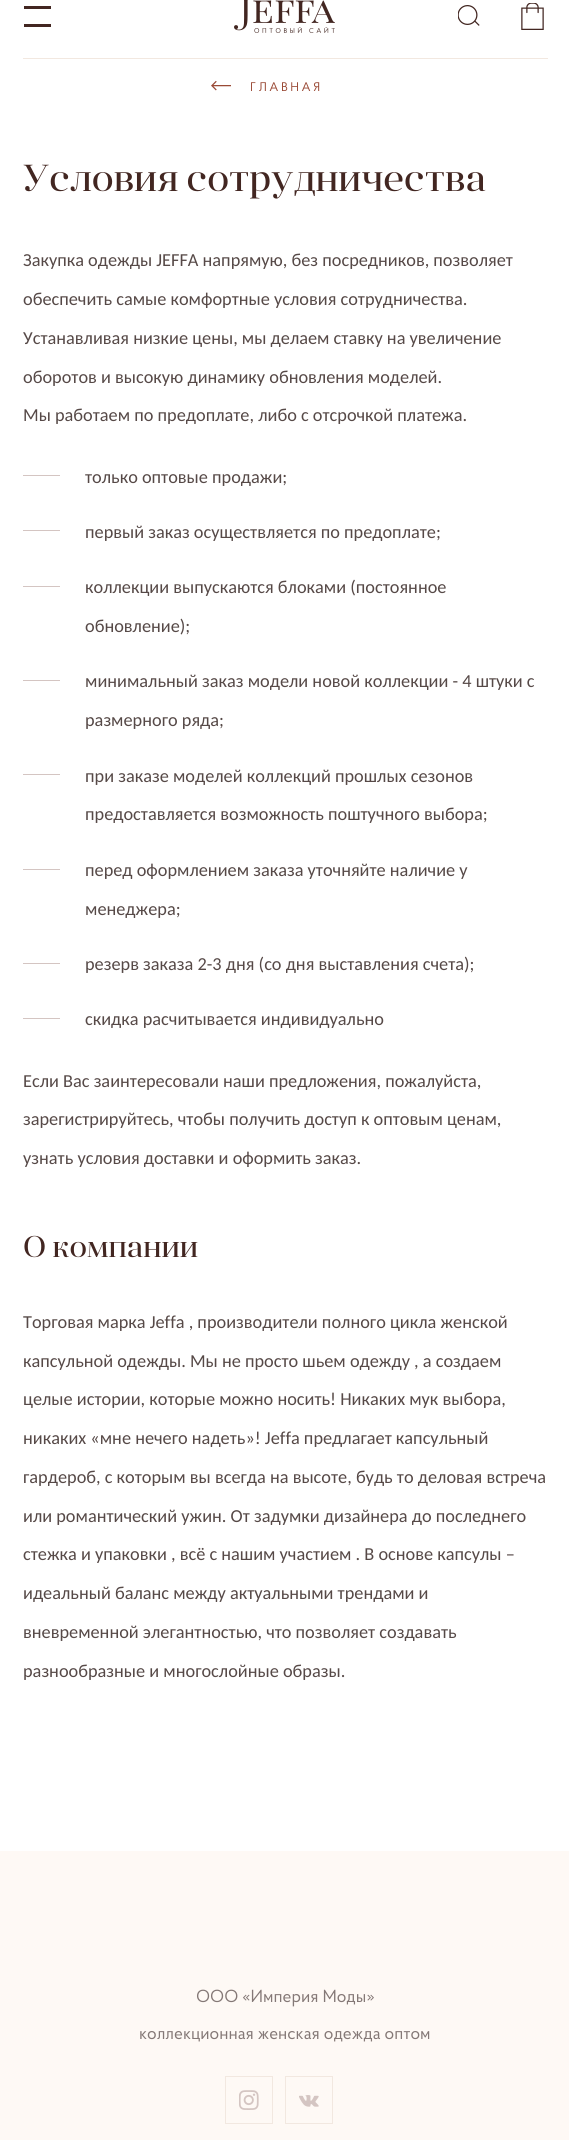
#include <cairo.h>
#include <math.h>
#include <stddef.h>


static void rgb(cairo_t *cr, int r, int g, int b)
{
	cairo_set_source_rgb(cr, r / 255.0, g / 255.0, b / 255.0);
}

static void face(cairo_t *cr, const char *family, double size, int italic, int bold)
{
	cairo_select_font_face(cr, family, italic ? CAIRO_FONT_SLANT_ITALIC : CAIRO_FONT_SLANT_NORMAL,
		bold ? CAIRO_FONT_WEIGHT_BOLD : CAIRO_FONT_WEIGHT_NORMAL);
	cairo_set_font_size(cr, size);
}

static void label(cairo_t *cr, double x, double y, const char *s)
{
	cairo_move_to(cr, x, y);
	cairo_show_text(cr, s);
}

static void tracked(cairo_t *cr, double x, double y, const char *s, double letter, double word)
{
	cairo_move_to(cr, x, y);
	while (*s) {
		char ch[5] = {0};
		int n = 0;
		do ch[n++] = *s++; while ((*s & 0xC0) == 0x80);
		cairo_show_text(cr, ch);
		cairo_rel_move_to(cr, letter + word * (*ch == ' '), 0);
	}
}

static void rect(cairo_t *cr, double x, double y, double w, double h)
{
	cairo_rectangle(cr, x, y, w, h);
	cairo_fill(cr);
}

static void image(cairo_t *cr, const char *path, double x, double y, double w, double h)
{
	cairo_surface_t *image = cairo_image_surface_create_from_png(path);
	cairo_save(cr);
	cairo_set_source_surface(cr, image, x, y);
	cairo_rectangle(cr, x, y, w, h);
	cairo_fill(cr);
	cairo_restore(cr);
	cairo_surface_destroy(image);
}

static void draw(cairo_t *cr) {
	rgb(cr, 255, 255, 255);
	cairo_paint(cr);
	rgb(cr, 66, 38, 33);
	rect(cr, 24, 6, 27, 3);
	rect(cr, 24, 24, 27, 3);
	image(cr, "image0.png", 234, 0, 101, 33);
	image(cr, "image1.png", 458, 5, 22, 21);
	image(cr, "image2.png", 521, 3, 23, 27);
	rgb(cr, 242, 232, 224);
	rect(cr, 23, 58, 525, 1);
	image(cr, "image3.png", 211, 80, 20, 11);
	face(cr, "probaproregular", 12.5, 0, 0);
	rgb(cr, 154, 74, 54);
	tracked(cr, 250, 91, "ГЛАВНАЯ", 2.5, 0);
	face(cr, "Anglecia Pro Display", 37.5, 0, 0);
	rgb(cr, 66, 38, 33);
	label(cr, 23, 191, "Условия сотрудничества");
	face(cr, "Carlito", 18.3, 0, 0);
	rgb(cr, 86, 73, 71);
	label(cr, 23, 266, "Закупка одежды JEFFA напрямую, без посредников, позволяет");
	label(cr, 23, 305, "обеспечить самые комфортные условия сотрудничества.");
	label(cr, 23, 344, "Устанавливая низкие цены, мы делаем ставку на увеличение");
	label(cr, 23, 383, "оборотов и высокую динамику обновления моделей.");
	label(cr, 23, 421, "Мы работаем по предоплате, либо с отсрочкой платежа.");
	rgb(cr, 212, 197, 194);
	rect(cr, 23, 475, 37, 1);
	rgb(cr, 86, 73, 71);
	label(cr, 85, 483, "только оптовые продажи;");
	rgb(cr, 212, 197, 194);
	rect(cr, 23, 530, 37, 1);
	rgb(cr, 86, 73, 71);
	label(cr, 85, 538, "первый заказ осуществляется по предоплате;");
	rgb(cr, 212, 197, 194);
	rect(cr, 23, 586, 37, 1);
	rgb(cr, 86, 73, 71);
	label(cr, 85, 593, "коллекции выпускаются блоками (постоянное");
	label(cr, 85, 632, "обновление);");
	rgb(cr, 212, 197, 194);
	rect(cr, 23, 680, 37, 1);
	rgb(cr, 86, 73, 71);
	label(cr, 85, 687, "минимальный заказ модели новой коллекции - 4 штуки с");
	label(cr, 85, 726, "размерного ряда;");
	rgb(cr, 212, 197, 194);
	rect(cr, 23, 774, 37, 1);
	rgb(cr, 86, 73, 71);
	label(cr, 85, 782, "при заказе моделей коллекций прошлых сезонов");
	label(cr, 85, 820, "предоставляется возможность поштучного выбора;");
	rgb(cr, 212, 197, 194);
	rect(cr, 23, 869, 37, 1);
	rgb(cr, 86, 73, 71);
	label(cr, 85, 876, "перед оформлением заказа уточняйте наличие у");
	label(cr, 85, 915, "менеджера;");
	rgb(cr, 212, 197, 194);
	rect(cr, 23, 963, 37, 1);
	rgb(cr, 86, 73, 71);
	label(cr, 85, 970, "резерв заказа 2-3 дня (со дня выставления счета);");
	rgb(cr, 212, 197, 194);
	rect(cr, 23, 1018, 37, 1);
	rgb(cr, 86, 73, 71);
	label(cr, 85, 1025, "скидка расчитывается индивидуально");
	label(cr, 23, 1087, "Если Вас заинтересовали наши предложения, пожалуйста,");
	label(cr, 23, 1125, "зарегистрируйтесь, чтобы получить доступ к оптовым ценам,");
	label(cr, 23, 1164, "узнать условия доставки и оформить заказ.");
	face(cr, "Anglecia Pro Display", 30, 0, 0);
	rgb(cr, 66, 38, 33);
	label(cr, 23, 1257, "О компании");
	face(cr, "Carlito", 18.3, 0, 0);
	rgb(cr, 86, 73, 71);
	label(cr, 23, 1328, "Торговая марка Jeffa , производители полного цикла женской");
	label(cr, 23, 1367, "капсульной одежды. Мы не просто шьем одежду , а создаем");
	label(cr, 23, 1405, "целые истории, которые можно носить! Никаких мук выбора,");
	label(cr, 23, 1444, "никаких «мне нечего надеть»! Jeffa предлагает капсульный");
	label(cr, 23, 1483, "гардероб, с которым вы всегда на высоте, будь то деловая встреча");
	label(cr, 23, 1522, "или романтический ужин. От задумки дизайнера до последнего");
	label(cr, 23, 1560, "стежка и упаковки , вcё с нашим участием . В основе капсулы –");
	label(cr, 23, 1599, "идеальный баланс между актуальными трендами и");
	label(cr, 23, 1638, "вневременной элегантностью, что позволяет создавать");
	label(cr, 23, 1677, "разнообразные и многослойные образы.");
	rgb(cr, 254, 249, 245);
	rect(cr, 0, 1851, 569, 289);
	face(cr, "probaproregular", 17.5, 0, 0);
	rgb(cr, 132, 120, 118);
	label(cr, 196, 2002, "ООО «Империя Моды»");
	label(cr, 139, 2039, "коллекционная женская одежда оптом");
	cairo_rectangle(cr, 225.5, 2076.5, 47, 47);
	rgb(cr, 242, 232, 224);
	cairo_set_line_width(cr, 1);
	cairo_stroke(cr);
	image(cr, "image4.png", 239, 2090, 20, 20);
	cairo_rectangle(cr, 285.5, 2076.5, 47, 47);
	cairo_stroke(cr);
	image(cr, "image5.png", 299, 2095, 20, 12);
}

int main(void) {
	cairo_surface_t *surface = cairo_image_surface_create(CAIRO_FORMAT_RGB24, 569, 2140);
	cairo_t *cr = cairo_create(surface);
	cairo_font_options_t *options = cairo_font_options_create();
	cairo_font_options_set_hint_metrics(options, CAIRO_HINT_METRICS_OFF);
	cairo_font_options_set_hint_style(options, CAIRO_HINT_STYLE_NONE);
	cairo_set_font_options(cr, options);
	cairo_set_miter_limit(cr, 4);
	draw(cr);
	cairo_surface_write_to_png(surface, "render.png");
	cairo_font_options_destroy(options);
	cairo_destroy(cr);
	cairo_surface_destroy(surface);
	return 0;
}
